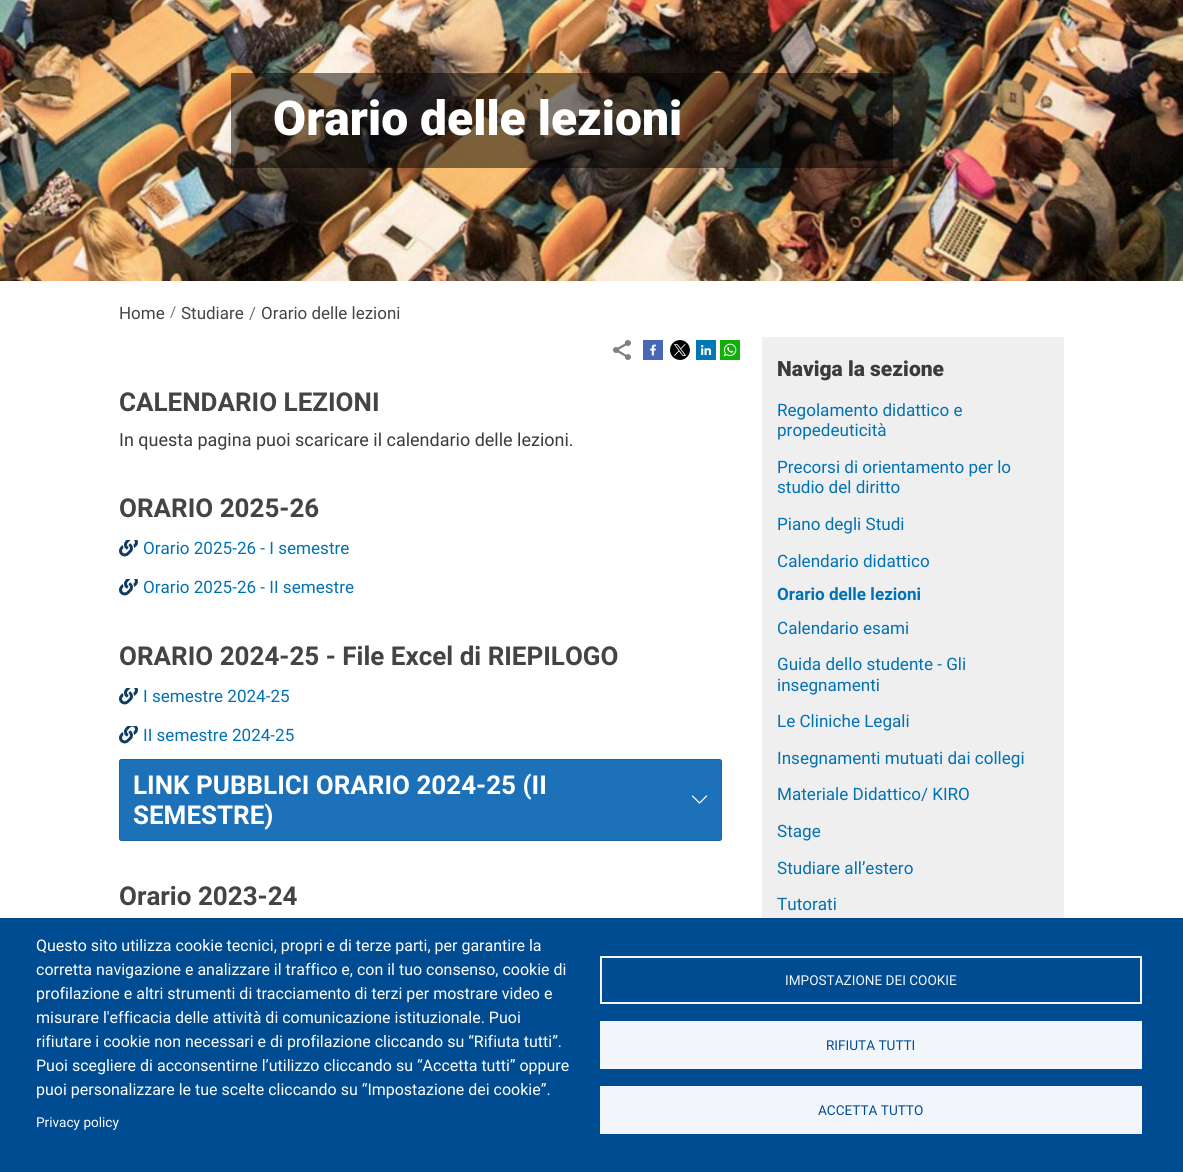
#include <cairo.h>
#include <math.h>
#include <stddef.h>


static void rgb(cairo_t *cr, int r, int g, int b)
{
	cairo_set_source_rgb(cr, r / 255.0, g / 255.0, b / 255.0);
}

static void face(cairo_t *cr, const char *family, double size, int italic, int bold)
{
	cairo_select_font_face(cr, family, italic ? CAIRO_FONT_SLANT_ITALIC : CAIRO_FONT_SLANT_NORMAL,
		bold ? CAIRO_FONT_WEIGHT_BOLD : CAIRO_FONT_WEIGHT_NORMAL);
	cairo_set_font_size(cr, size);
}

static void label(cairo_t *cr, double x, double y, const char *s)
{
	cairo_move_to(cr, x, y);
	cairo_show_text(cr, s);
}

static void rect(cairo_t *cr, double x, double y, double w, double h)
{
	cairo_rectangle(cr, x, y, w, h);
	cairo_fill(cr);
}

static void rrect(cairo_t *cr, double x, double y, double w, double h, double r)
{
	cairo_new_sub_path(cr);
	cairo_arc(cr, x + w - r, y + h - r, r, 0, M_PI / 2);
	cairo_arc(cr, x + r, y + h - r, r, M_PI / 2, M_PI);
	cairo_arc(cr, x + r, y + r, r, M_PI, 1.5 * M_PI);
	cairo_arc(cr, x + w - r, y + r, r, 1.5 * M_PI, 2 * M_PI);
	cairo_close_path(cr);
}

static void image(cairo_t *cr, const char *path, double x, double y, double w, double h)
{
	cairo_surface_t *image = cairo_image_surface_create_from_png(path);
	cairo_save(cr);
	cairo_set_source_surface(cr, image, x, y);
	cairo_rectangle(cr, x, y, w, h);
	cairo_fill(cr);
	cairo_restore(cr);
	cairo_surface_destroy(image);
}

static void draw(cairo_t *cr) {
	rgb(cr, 255, 255, 255);
	cairo_paint(cr);
	image(cr, "image0.png", 0, 0, 1183, 281);
	cairo_set_source_rgba(cr, 0, 0, 0, 0.5);
	rect(cr, 231, 73, 662, 95);
	face(cr, "Roboto Black", 48, 0, 0);
	rgb(cr, 255, 255, 255);
	label(cr, 273, 135, "Orario delle lezioni");
	rgb(cr, 0, 76, 147);
	rect(cr, 0, 918, 1183, 254);
	face(cr, "Roboto", 16, 0, 0);
	rgb(cr, 255, 255, 255);
	label(cr, 36, 951, "Questo sito utilizza cookie tecnici, propri e di terze parti, per garantire la");
	label(cr, 36, 975, "corretta navigazione e analizzare il traffico e, con il tuo consenso, cookie di");
	label(cr, 36, 999, "profilazione e altri strumenti di tracciamento di terzi per mostrare video e");
	label(cr, 36, 1023, "misurare l'efficacia delle attività di comunicazione istituzionale. Puoi");
	label(cr, 36, 1047, "rifiutare i cookie non necessari e di profilazione cliccando su “Rifiuta tutti”.");
	label(cr, 36, 1071, "Puoi scegliere di acconsentirne l’utilizzo cliccando su “Accetta tutti” oppure");
	label(cr, 36, 1095, "puoi personalizzare le tue scelte cliccando su “Impostazione dei cookie”.");
	face(cr, "Roboto", 13.6, 0, 0);
	label(cr, 36, 1127, "Privacy policy");
	cairo_rectangle(cr, 601, 957, 540, 46);
	rgb(cr, 242, 246, 250);
	cairo_stroke(cr);
	label(cr, 785, 985, "IMPOSTAZIONE DEI COOKIE");
	rect(cr, 600, 1021, 542, 48);
	rgb(cr, 0, 76, 147);
	label(cr, 826, 1050, "RIFIUTA TUTTI");
	rgb(cr, 242, 246, 250);
	rect(cr, 600, 1086, 542, 48);
	rgb(cr, 0, 76, 147);
	label(cr, 818, 1115, "ACCETTA TUTTO");
	face(cr, "Roboto", 17, 0, 0);
	rgb(cr, 68, 68, 68);
	label(cr, 119, 319, "Home");
	face(cr, "Roboto", 15, 0, 0);
	rgb(cr, 108, 117, 125);
	label(cr, 170, 317, "/");
	face(cr, "Roboto", 17, 0, 0);
	rgb(cr, 68, 68, 68);
	label(cr, 181, 319, "Studiare");
	rgb(cr, 108, 117, 125);
	label(cr, 249, 319, "/");
	rgb(cr, 68, 68, 68);
	label(cr, 261, 319, "Orario delle lezioni");
	image(cr, "image1.png", 613, 340, 18, 20);
	image(cr, "image2.png", 643, 340, 20, 20);
	image(cr, "image3.png", 670, 340, 20, 20);
	image(cr, "image4.png", 696, 340, 20, 20);
	image(cr, "image5.png", 720, 340, 20, 20);
	face(cr, "Roboto", 26, 0, 1);
	label(cr, 119, 411, "CALENDARIO LEZIONI");
	face(cr, "Roboto", 18, 0, 0);
	rgb(cr, 59, 59, 59);
	label(cr, 119, 446, "In questa pagina puoi scaricare il calendario delle lezioni.");
	face(cr, "Roboto", 26, 0, 1);
	rgb(cr, 68, 68, 68);
	label(cr, 119, 517, "ORARIO 2025-26");
	image(cr, "image6.png", 119, 540, 19, 17);
	face(cr, "Roboto", 17.1, 0, 0);
	rgb(cr, 0, 113, 179);
	label(cr, 143, 554, "Orario 2025-26 - I semestre");
	image(cr, "image6.png", 119, 579, 19, 17);
	label(cr, 143, 593, "Orario 2025-26 - II semestre");
	face(cr, "Roboto", 26, 0, 1);
	rgb(cr, 68, 68, 68);
	label(cr, 119, 665, "ORARIO 2024-25 - File Excel di RIEPILOGO");
	image(cr, "image6.png", 119, 688, 19, 17);
	face(cr, "Roboto", 17.1, 0, 0);
	rgb(cr, 0, 113, 179);
	label(cr, 143, 702, "I semestre 2024-25");
	image(cr, "image7.png", 119, 726, 19, 18);
	label(cr, 143, 741, "II semestre 2024-25");
	rgb(cr, 29, 113, 184);
	rrect(cr, 119, 759, 603, 82, 2.5);
	cairo_fill(cr);
	rrect(cr, 119.5, 759.5, 602, 81, 2);
	cairo_set_source_rgba(cr, 0, 0, 0, 0.12);
	cairo_set_line_width(cr, 1);
	cairo_stroke(cr);
	face(cr, "Roboto", 26, 0, 1);
	rgb(cr, 255, 255, 255);
	label(cr, 133, 794, "LINK PUBBLICI ORARIO 2024-25 (II");
	label(cr, 133, 824, "SEMESTRE)");
	image(cr, "image8.png", 691, 795, 17, 9);
	rgb(cr, 68, 68, 68);
	label(cr, 119, 905, "Orario 2023-24");
	rgb(cr, 239, 239, 239);
	rect(cr, 762, 337, 302, 581);
	face(cr, "Roboto Black", 21, 0, 0);
	rgb(cr, 59, 59, 59);
	label(cr, 777, 376, "Naviga la sezione");
	face(cr, "Roboto", 17.1, 0, 0);
	rgb(cr, 0, 113, 179);
	label(cr, 777, 416, "Regolamento didattico e");
	label(cr, 777, 436, "propedeuticità");
	label(cr, 777, 473, "Precorsi di orientamento per lo");
	label(cr, 777, 493, "studio del diritto");
	label(cr, 777, 530, "Piano degli Studi");
	label(cr, 777, 567, "Calendario didattico");
	face(cr, "Roboto", 17.1, 0, 1);
	label(cr, 777, 600, "Orario delle lezioni");
	face(cr, "Roboto", 17.1, 0, 0);
	label(cr, 777, 634, "Calendario esami");
	label(cr, 777, 670, "Guida dello studente - Gli");
	label(cr, 777, 691, "insegnamenti");
	label(cr, 777, 727, "Le Cliniche Legali");
	label(cr, 777, 764, "Insegnamenti mutuati dai collegi");
	label(cr, 777, 800, "Materiale Didattico/ KIRO");
	label(cr, 777, 837, "Stage");
	label(cr, 777, 874, "Studiare all’estero");
	label(cr, 777, 910, "Tutorati");
}

int main(void) {
	cairo_surface_t *surface = cairo_image_surface_create(CAIRO_FORMAT_RGB24, 1183, 1172);
	cairo_t *cr = cairo_create(surface);
	cairo_font_options_t *options = cairo_font_options_create();
	cairo_font_options_set_hint_metrics(options, CAIRO_HINT_METRICS_OFF);
	cairo_font_options_set_hint_style(options, CAIRO_HINT_STYLE_NONE);
	cairo_set_font_options(cr, options);
	cairo_set_miter_limit(cr, 4);
	draw(cr);
	cairo_surface_write_to_png(surface, "render.png");
	cairo_font_options_destroy(options);
	cairo_destroy(cr);
	cairo_surface_destroy(surface);
	return 0;
}
